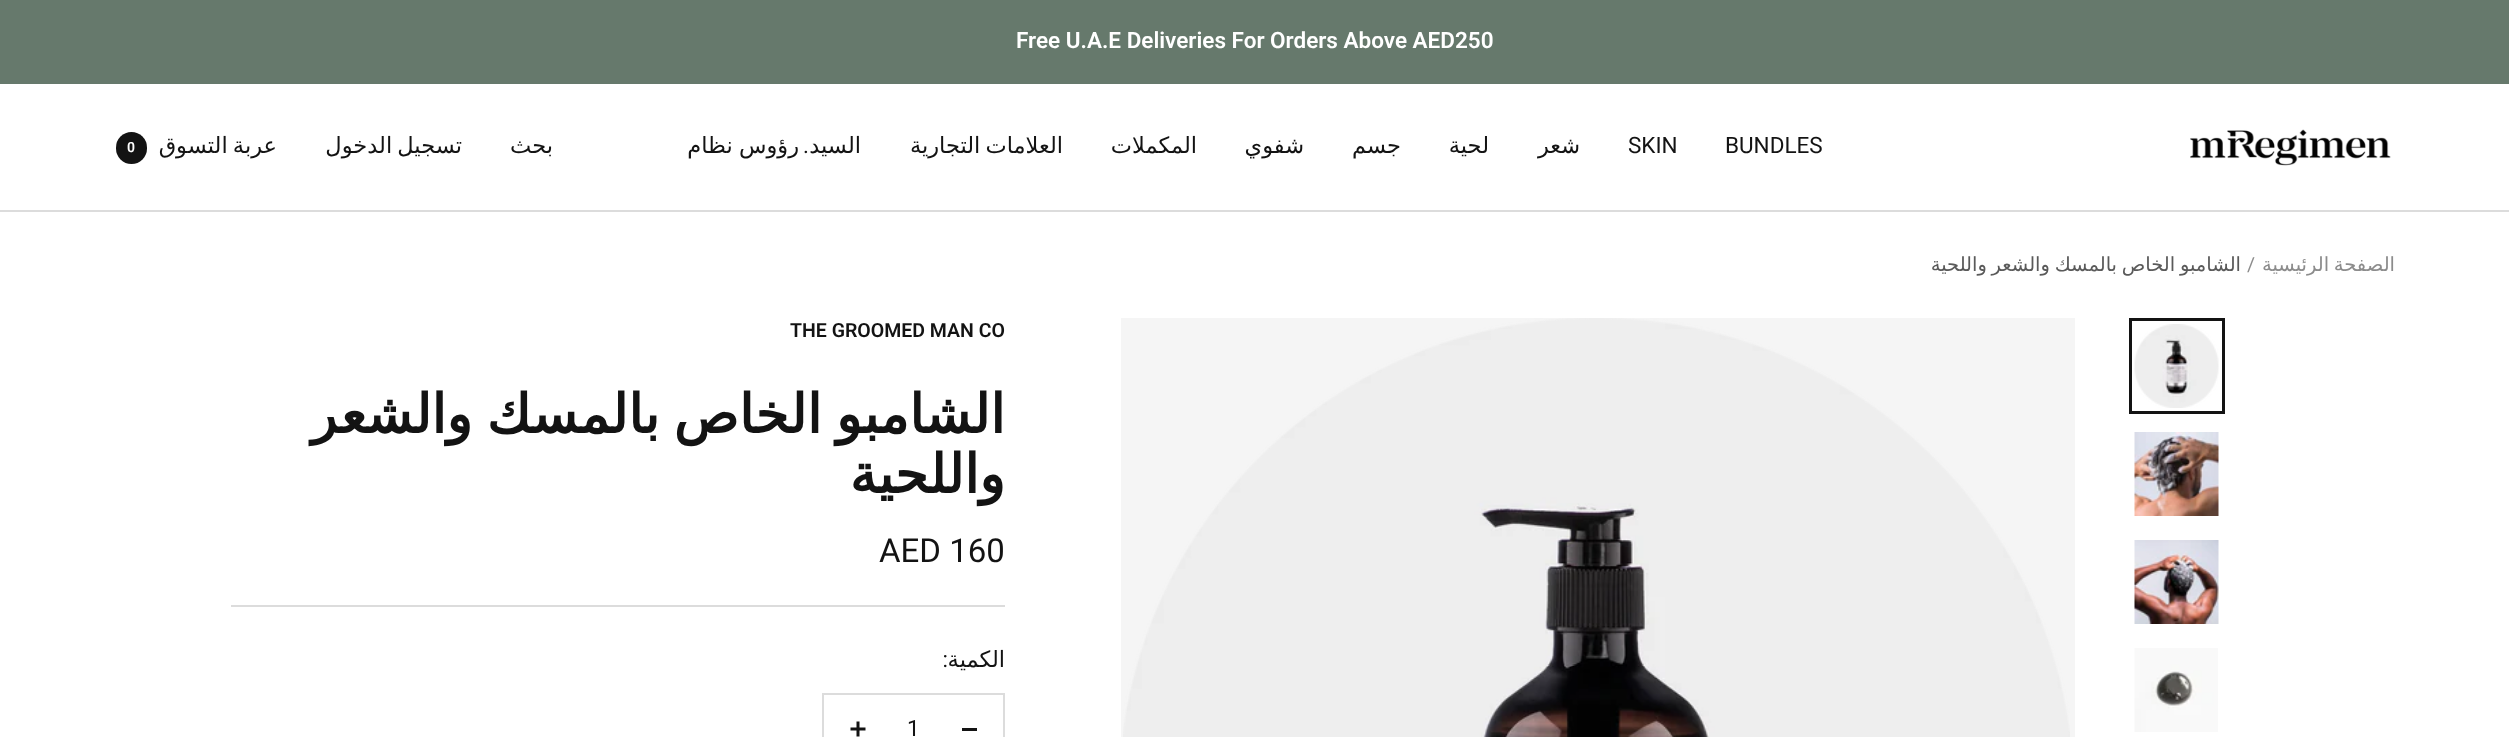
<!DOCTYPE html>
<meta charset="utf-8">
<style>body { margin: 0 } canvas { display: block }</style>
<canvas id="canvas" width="2509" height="737"></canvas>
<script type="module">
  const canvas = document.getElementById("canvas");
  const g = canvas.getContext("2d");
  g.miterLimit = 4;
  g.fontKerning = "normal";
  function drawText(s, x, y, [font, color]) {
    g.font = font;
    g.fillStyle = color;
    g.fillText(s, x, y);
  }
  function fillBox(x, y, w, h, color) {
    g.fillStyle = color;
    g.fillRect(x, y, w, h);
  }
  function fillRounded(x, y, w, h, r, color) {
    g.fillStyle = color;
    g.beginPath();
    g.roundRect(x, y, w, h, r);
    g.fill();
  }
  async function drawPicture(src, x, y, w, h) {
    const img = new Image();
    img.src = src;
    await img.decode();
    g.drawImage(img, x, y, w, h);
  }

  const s1 = ["600 22.5px Roboto", "#FFFFFF"];
  const s2 = ["22.5px Roboto", "#131313"];
  const s3 = ["22.5px DejaVu Sans", "#131313"];
  const s4 = ["600 14px Roboto", "#FFFFFF"];
  const s5 = ["19.5px DejaVu Sans", "#8C8C8C"];
  const s6 = ["19.5px Roboto", "#8C8C8C"];
  const s7 = ["19.5px DejaVu Sans", "#5A5A5A"];
  const s8 = ["600 19.5px Roboto", "#131313"];
  const s9 = ["bold 54px DejaVu Sans", "#131313"];
  const s10 = ["33px Roboto", "#131313"];

  fillBox(0, 0, 2509, 737, "#FFFFFF");
  fillBox(0, 0, 2509, 84, "#66796C");
  drawText("Free U.A.E Deliveries For Orders Above AED250", 1016, 48, s1);
  g.fillStyle = "#DCDCDC";
  g.beginPath();
  g.moveTo(0, 210);
  g.lineTo(0, 212);
  g.lineTo(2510, 212);
  g.lineTo(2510, 86);
  g.lineTo(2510, 210);
  g.closePath();
  g.fill();
  await drawPicture("pic1.png", 2190, 129, 201, 37);
  drawText("BUNDLES", 1725, 153, s2);
  drawText("SKIN", 1628, 153, s2);
  g.direction = "rtl";
  drawText("شعر", 1580, 153, s3);
  drawText("لحية", 1489, 153, s3);
  drawText("جسم", 1401, 153, s3);
  drawText("شفوي", 1304, 153, s3);
  drawText("المكملات", 1197, 153, s3);
  g.wordSpacing = "-2px";
  drawText("العلامات التجارية", 1063, 153, s3);
  g.wordSpacing = "0px";
  drawText("السيد", 861, 153, s3);
  drawText(".", 809, 153, s2);
  g.wordSpacing = "-1px";
  drawText("رؤوس نظام", 799, 153, s3);
  g.wordSpacing = "0px";
  drawText("بحث", 553, 153, s3);
  g.wordSpacing = "-2px";
  drawText("تسجيل الدخول", 462, 153, s3);
  drawText("عربة التسوق", 277, 153, s3);
  fillRounded(116, 132, 31, 32, 15.5, "#131313");
  g.wordSpacing = "0px";
  g.direction = "ltr";
  drawText("0", 127, 152, s4);
  g.wordSpacing = "-1.5px";
  g.direction = "rtl";
  drawText("الصفحة الرئيسية", 2395, 271, s5);
  g.wordSpacing = "0px";
  g.direction = "ltr";
  drawText("/", 2247, 271, s6);
  g.wordSpacing = "-1.5px";
  g.direction = "rtl";
  drawText("الشامبو الخاص بالمسك والشعر واللحية", 2241, 271, s7);
  await drawPicture("pic2.png", 2134, 324, 85, 84);
  g.strokeStyle = "#131313";
  g.lineWidth = 3;
  g.strokeRect(2130.5, 319.5, 93, 93);
  await drawPicture("pic3.png", 2134, 432, 85, 84);
  await drawPicture("pic4.png", 2134, 540, 85, 84);
  await drawPicture("pic5.png", 2134, 648, 84, 84);
  fillBox(1121, 318, 954, 419, "#F5F5F5");
  await drawPicture("pic6.png", 1123, 318, 947, 419);
  fillBox(231, 605, 774, 2, "#DCDCDC");
  g.wordSpacing = "0px";
  g.direction = "ltr";
  drawText("THE GROOMED MAN CO", 790, 337, s8);
  g.wordSpacing = "-3px";
  g.direction = "rtl";
  drawText("الشامبو الخاص بالمسك والشعر", 1005, 433, s9);
  g.wordSpacing = "0px";
  drawText("واللحية", 1005, 493, s9);
  g.direction = "ltr";
  drawText("AED 160", 879, 562, s10);
  g.direction = "rtl";
  drawText("الكمية", 1005, 667, s3);
  drawText(":", 948, 667, s2);
  g.strokeStyle = "#DCDCDC";
  g.lineWidth = 2;
  g.strokeRect(823, 694, 181, 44);
  fillBox(962, 728, 15, 3, "#131313");
  g.direction = "ltr";
  drawText("1", 907, 736, s2);
  await drawPicture("pic7.png", 850, 721, 16, 16);
</script>
